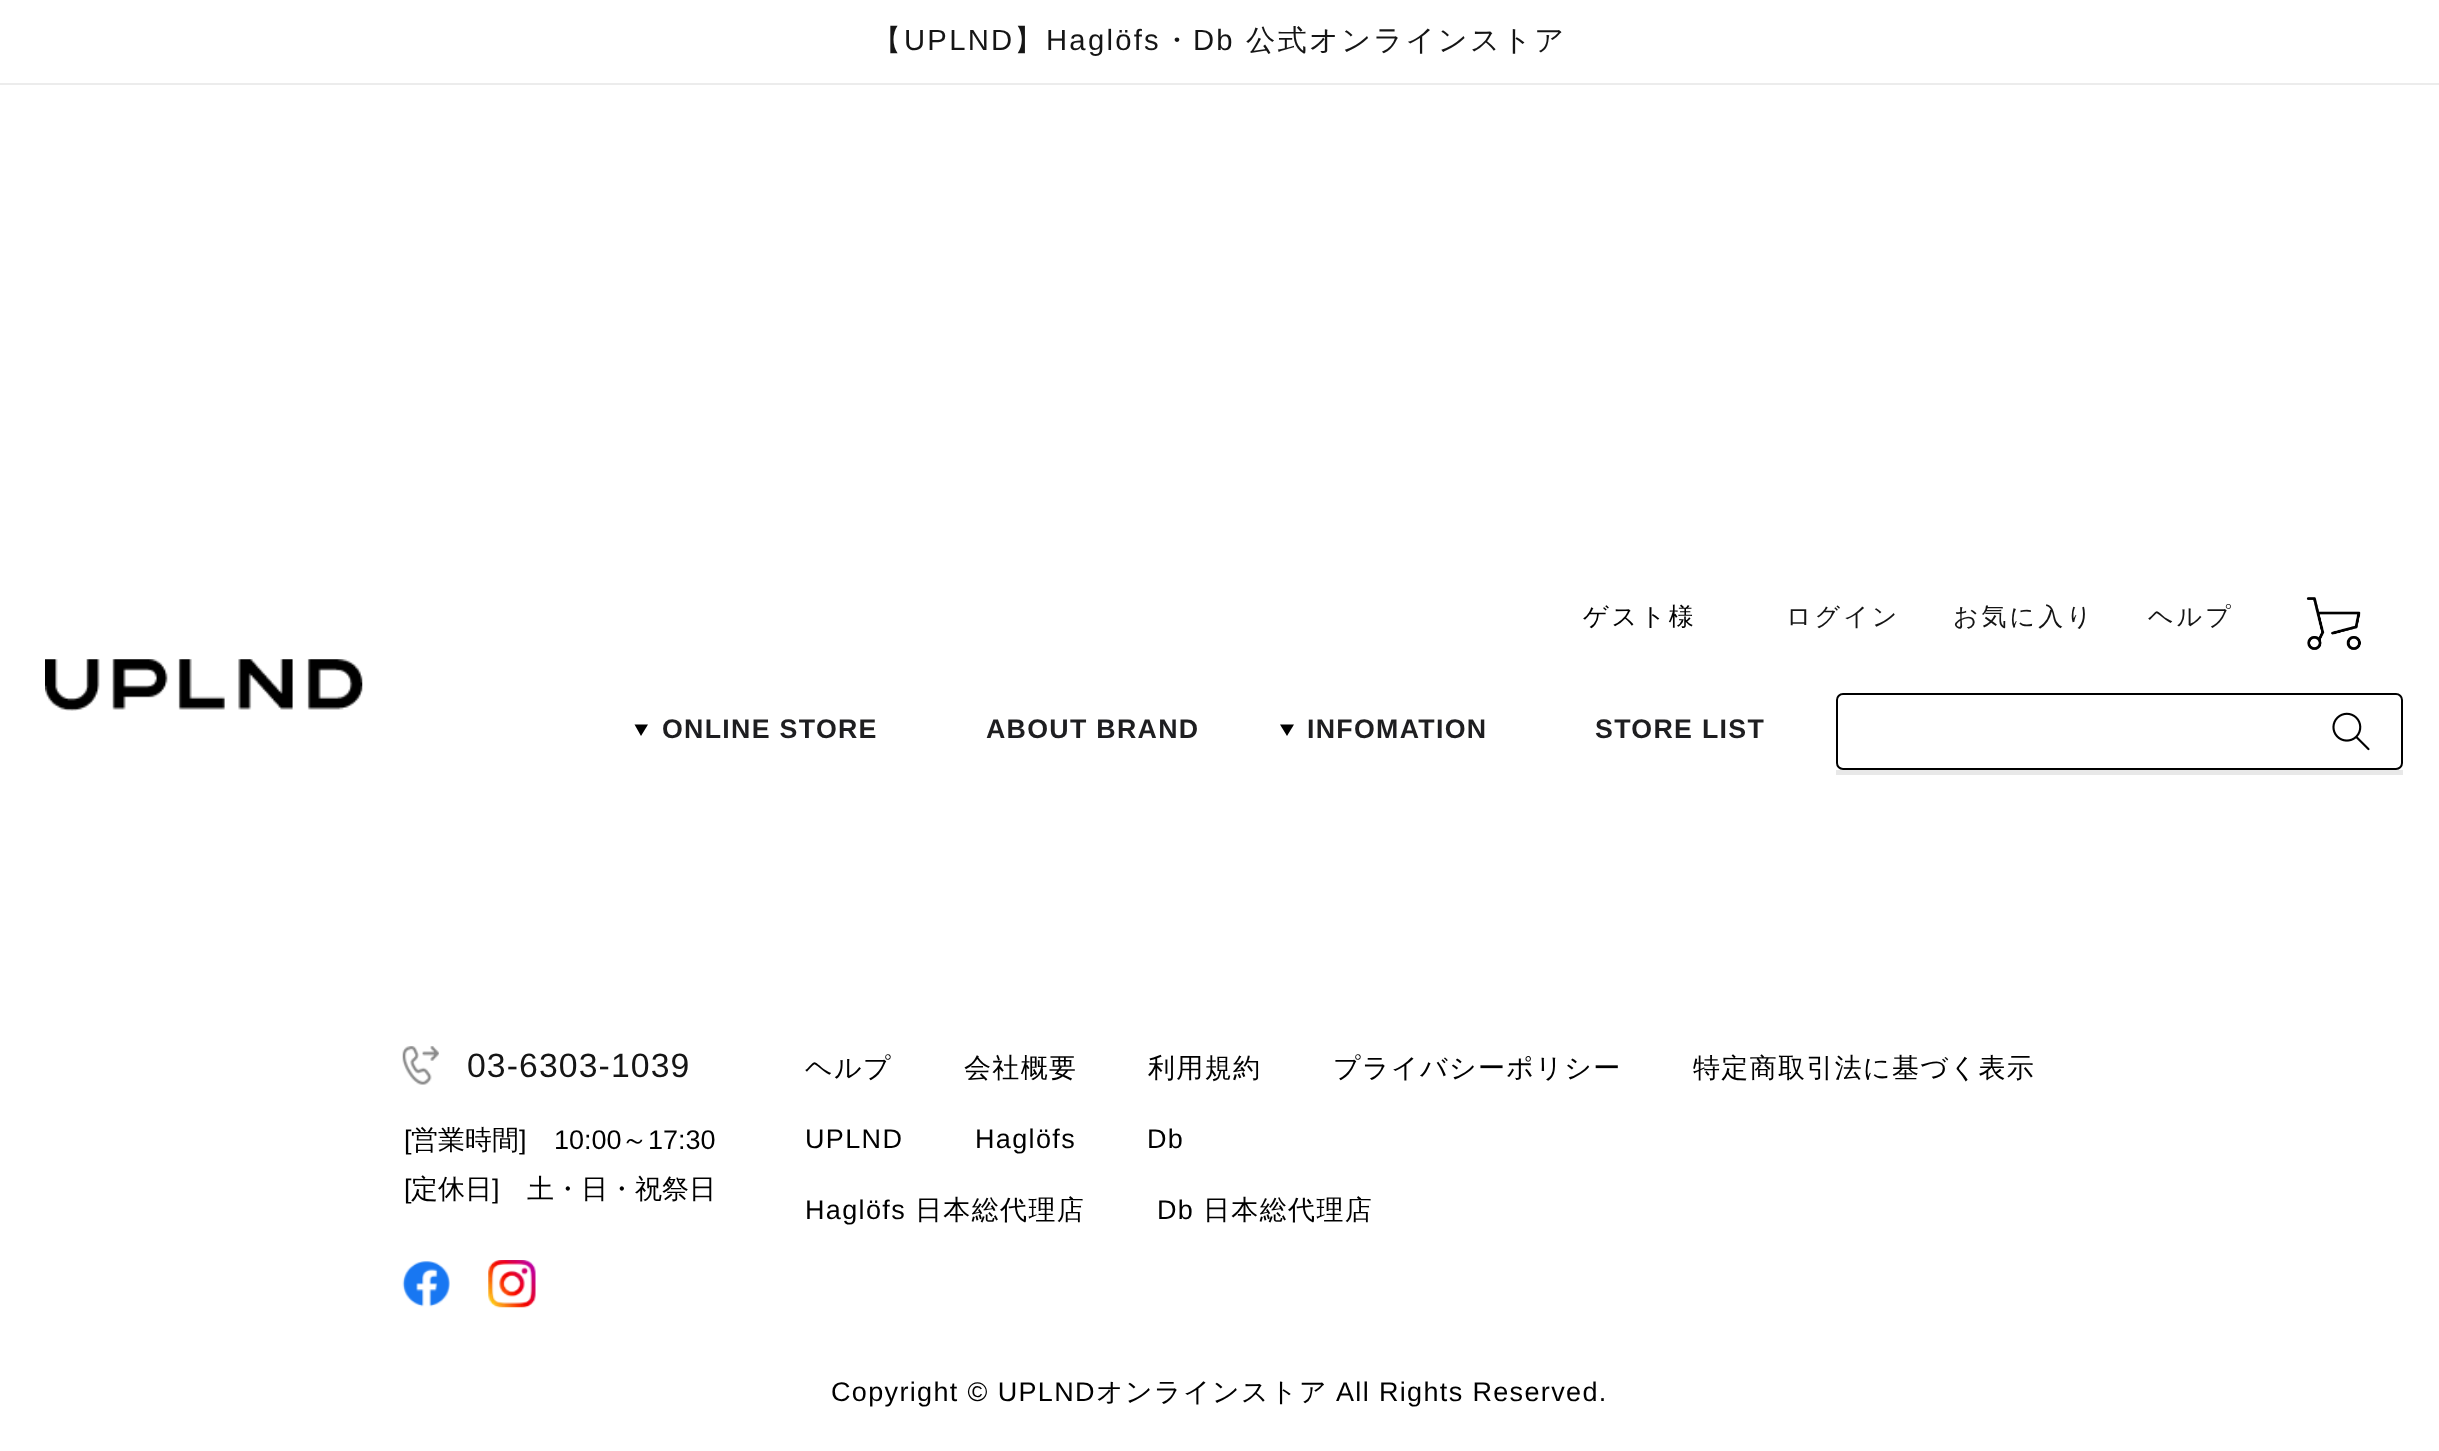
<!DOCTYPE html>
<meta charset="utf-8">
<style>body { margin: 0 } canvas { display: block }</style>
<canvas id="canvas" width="2439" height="1451"></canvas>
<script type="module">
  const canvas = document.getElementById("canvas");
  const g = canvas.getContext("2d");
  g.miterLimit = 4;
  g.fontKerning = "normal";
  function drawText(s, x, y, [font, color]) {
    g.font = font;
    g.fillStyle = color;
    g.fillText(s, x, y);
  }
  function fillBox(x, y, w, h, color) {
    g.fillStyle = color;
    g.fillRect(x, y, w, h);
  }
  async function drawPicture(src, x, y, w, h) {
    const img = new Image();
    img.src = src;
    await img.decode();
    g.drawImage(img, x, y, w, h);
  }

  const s1 = ["500 29.25px WenQuanYi Zen Hei", "#151515"];
  const s2 = ["29.25px Liberation Sans", "#151515"];
  const s3 = ["500 25px WenQuanYi Zen Hei", "#000000"];
  const s4 = ["500 25px WenQuanYi Zen Hei", "#151515"];
  const s5 = ["bold 26.75px Liberation Sans", "#1E1E20"];
  const s6 = ["33.75px Liberation Sans", "#151515"];
  const s7 = ["27px Liberation Sans", "#000000"];
  const s8 = ["500 27px WenQuanYi Zen Hei", "#000000"];

  fillBox(0, 0, 2439, 1451, "#FFFFFF");
  fillBox(0, 83, 2439, 2, "#ECECEC");
  g.letterSpacing = "2.25px";
  drawText("【", 872, 50, s1);
  drawText("UPLND", 904, 50, s2);
  drawText("】", 1014, 50, s1);
  drawText("Haglöfs", 1046, 50, s2);
  drawText("・", 1162, 50, s1);
  drawText("Db", 1193, 50, s2);
  drawText("公式オンラインストア", 1246, 50, s1);
  await drawPicture("pic1.png", 45, 659, 318, 52);
  g.letterSpacing = "3px";
  drawText("ゲスト様", 1583, 625, s3);
  drawText("ログイン", 1786, 625, s4);
  drawText("お気に入り", 1953, 625, s4);
  drawText("ヘルプ", 2148, 625, s4);
  await drawPicture("pic2.png", 2306, 597, 55, 53);
  g.fillStyle = "#000000";
  g.beginPath();
  g.moveTo(634.5, 724.5);
  g.lineTo(648, 724.5);
  g.lineTo(641, 736);
  g.closePath();
  g.fill();
  g.letterSpacing = "1.3px";
  drawText("ONLINE STORE", 662, 738, s5);
  drawText("ABOUT BRAND", 986, 738, s5);
  g.fillStyle = "#000000";
  g.beginPath();
  g.moveTo(1280, 724.5);
  g.lineTo(1294, 724.5);
  g.lineTo(1287, 736);
  g.closePath();
  g.fill();
  drawText("INFOMATION", 1307, 738, s5);
  drawText("STORE LIST", 1595, 738, s5);
  g.beginPath();
  g.roundRect(1837, 694, 565, 75, 6);
  g.strokeStyle = "#000000";
  g.lineWidth = 2;
  g.stroke();
  await drawPicture("pic3.png", 2332, 712, 38, 39);
  fillBox(1836, 770, 567, 5, "#E8E8E8");
  await drawPicture("pic4.png", 402, 1046, 37, 39);
  g.letterSpacing = "1.1px";
  drawText("03-6303-1039", 467, 1077, s6);
  g.letterSpacing = "0px";
  drawText("[", 404, 1149, s7);
  drawText("営業時間", 411, 1149, s8);
  drawText("]", 519, 1149, s7);
  drawText("10:00", 554, 1149, s7);
  drawText("～", 621, 1149, s8);
  drawText("17:30", 648, 1149, s7);
  drawText("[", 404, 1198, s7);
  drawText("定休日", 411, 1198, s8);
  drawText("]", 492, 1198, s7);
  drawText("土・日・祝祭日", 527, 1198, s8);
  await drawPicture("pic5.png", 402, 1261, 48, 46);
  await drawPicture("pic6.png", 488, 1260, 48, 48);
  g.letterSpacing = "1.35px";
  drawText("ヘルプ", 805, 1077, s8);
  drawText("会社概要", 964, 1077, s8);
  drawText("利用規約", 1148, 1077, s8);
  drawText("プライバシーポリシー", 1333, 1077, s8);
  drawText("特定商取引法に基づく表示", 1693, 1077, s8);
  drawText("UPLND", 805, 1148, s7);
  drawText("Haglöfs", 975, 1148, s7);
  drawText("Db", 1147, 1148, s7);
  drawText("Haglöfs", 805, 1219, s7);
  drawText("日本総代理店", 915, 1219, s8);
  drawText("Db", 1157, 1219, s7);
  drawText("日本総代理店", 1203, 1219, s8);
  drawText("Copyright © UPLND", 831, 1401, s7);
  drawText("オンラインストア", 1096, 1401, s8);
  drawText("All Rights Reserved.", 1336, 1401, s7);
</script>
